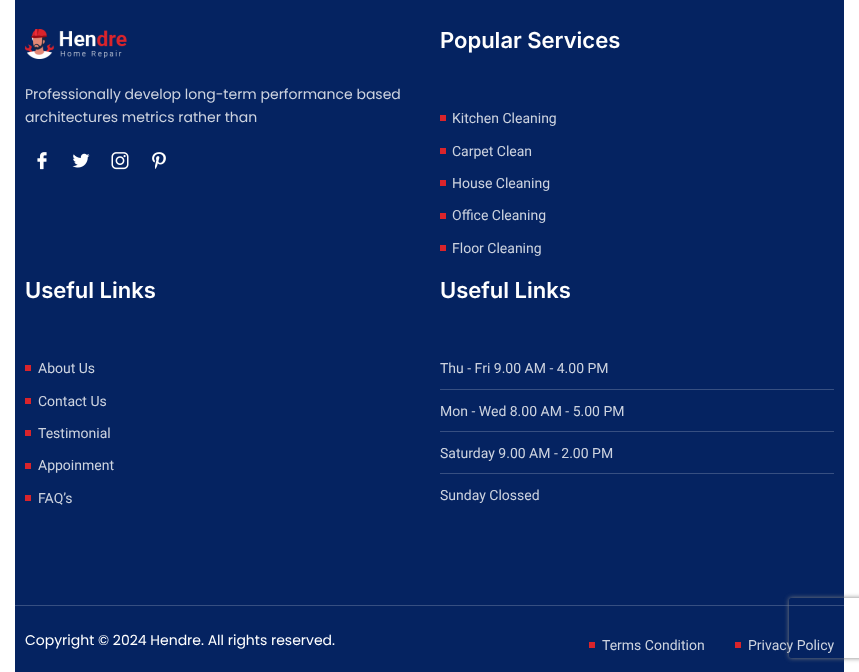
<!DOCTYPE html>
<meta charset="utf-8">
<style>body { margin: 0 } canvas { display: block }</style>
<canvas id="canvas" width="859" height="672"></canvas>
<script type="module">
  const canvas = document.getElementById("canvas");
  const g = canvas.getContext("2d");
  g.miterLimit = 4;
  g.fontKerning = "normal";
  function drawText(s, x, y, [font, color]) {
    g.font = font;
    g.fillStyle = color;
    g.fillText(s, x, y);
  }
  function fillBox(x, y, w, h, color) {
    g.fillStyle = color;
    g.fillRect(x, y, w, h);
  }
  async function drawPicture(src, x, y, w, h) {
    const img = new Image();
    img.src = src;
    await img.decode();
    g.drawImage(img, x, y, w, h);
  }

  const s1 = ["14px Poppins", "#CDD3DF"];
  const s2 = ["600 22px Inter", "#FFFFFF"];
  const s3 = ["14px Roboto", "#CDD3DF"];
  const s4 = ["14px Poppins", "#FFFFFF"];

  fillBox(0, 0, 859, 672, "#FFFFFF");
  fillBox(15, 0, 829, 672, "#052361");
  await drawPicture("pic1.png", 25, 29, 102, 30);
  drawText("Professionally develop long-term performance based", 25, 99, s1);
  drawText("architectures metrics rather than", 25, 122, s1);
  await drawPicture("pic2.png", 37, 152, 10, 18);
  await drawPicture("pic3.png", 72, 153, 18, 15);
  await drawPicture("pic4.png", 111, 152, 18, 18);
  await drawPicture("pic5.png", 152, 152, 14, 17);
  drawText("Popular Services", 440, 48, s2);
  fillBox(440, 115, 6, 6, "#DA242B");
  drawText("Kitchen Cleaning", 452, 123, s3);
  fillBox(440, 148, 6, 6, "#DA242B");
  drawText("Carpet Clean", 452, 156, s3);
  fillBox(440, 180, 6, 6, "#DA242B");
  drawText("House Cleaning", 452, 188, s3);
  fillBox(440, 213, 6, 6, "#DA242B");
  drawText("Office Cleaning", 452, 220, s3);
  fillBox(440, 245, 6, 6, "#DA242B");
  drawText("Floor Cleaning", 452, 253, s3);
  drawText("Useful Links", 25, 298, s2);
  fillBox(25, 365, 6, 6, "#DA242B");
  drawText("About Us", 38, 373, s3);
  fillBox(25, 398, 6, 6, "#DA242B");
  drawText("Contact Us", 38, 406, s3);
  fillBox(25, 430, 6, 6, "#DA242B");
  drawText("Testimonial", 38, 438, s3);
  fillBox(25, 463, 6, 6, "#DA242B");
  drawText("Appoinment", 38, 470, s3);
  fillBox(25, 495, 6, 6, "#DA242B");
  drawText("FAQ’s", 38, 503, s3);
  drawText("Useful Links", 440, 298, s2);
  drawText("Thu - Fri 9.00 AM - 4.00 PM", 440, 373, s3);
  fillBox(440, 389, 394, 1, "#374F81");
  drawText("Mon - Wed 8.00 AM - 5.00 PM", 440, 416, s3);
  fillBox(440, 431, 394, 1, "#374F81");
  drawText("Saturday 9.00 AM - 2.00 PM", 440, 458, s3);
  fillBox(440, 473, 394, 1, "#374F81");
  drawText("Sunday Clossed", 440, 500, s3);
  fillBox(15, 605, 829, 1, "#374F81");
  drawText("Copyright © 2024 Hendre. All rights reserved.", 25, 645, s4);
  fillBox(589, 642, 6, 6, "#DA242B");
  drawText("Terms Condition", 602, 650, s3);
  fillBox(735, 642, 6, 6, "#DA242B");
  drawText("Privacy Policy", 748, 650, s3);
  g.save();
  g.beginPath();
  g.moveTo(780, 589);
  g.lineTo(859, 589);
  g.lineTo(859, 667);
  g.lineTo(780, 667);
  g.closePath();
  g.moveTo(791, 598);
  g.lineTo(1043, 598);
  g.bezierCurveTo(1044, 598, 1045, 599, 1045, 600);
  g.lineTo(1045, 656);
  g.bezierCurveTo(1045, 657, 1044, 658, 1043, 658);
  g.lineTo(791, 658);
  g.bezierCurveTo(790, 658, 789, 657, 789, 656);
  g.lineTo(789, 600);
  g.bezierCurveTo(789, 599, 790, 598, 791, 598);
  g.closePath();
  g.clip("evenodd");
  g.fillStyle = "#808080";
  g.filter = "blur(2.5px)";
  g.beginPath();
  g.roundRect(789, 598, 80, 60, 2);
  g.fill();
  g.filter = "none";
  g.restore();
</script>
